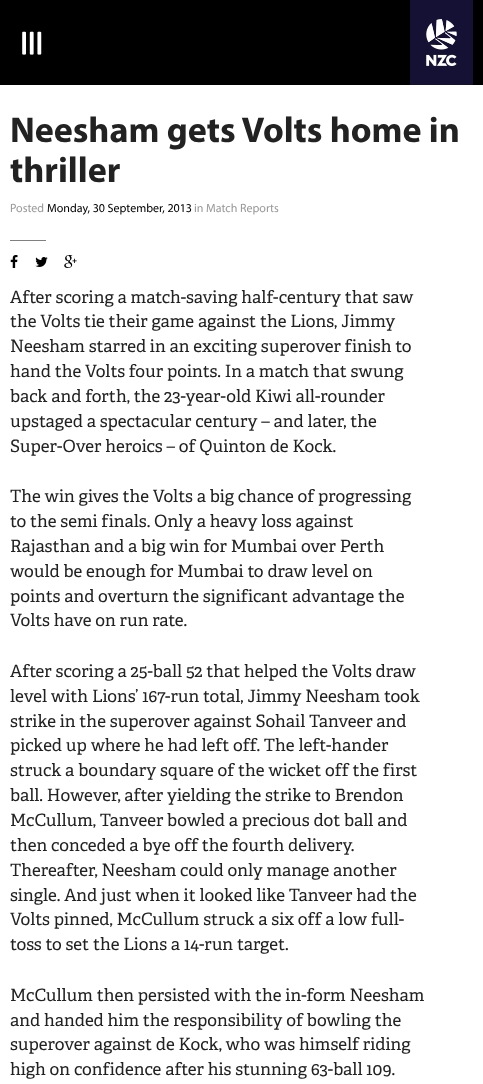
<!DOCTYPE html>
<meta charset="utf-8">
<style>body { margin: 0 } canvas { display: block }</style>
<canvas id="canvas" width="483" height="1084"></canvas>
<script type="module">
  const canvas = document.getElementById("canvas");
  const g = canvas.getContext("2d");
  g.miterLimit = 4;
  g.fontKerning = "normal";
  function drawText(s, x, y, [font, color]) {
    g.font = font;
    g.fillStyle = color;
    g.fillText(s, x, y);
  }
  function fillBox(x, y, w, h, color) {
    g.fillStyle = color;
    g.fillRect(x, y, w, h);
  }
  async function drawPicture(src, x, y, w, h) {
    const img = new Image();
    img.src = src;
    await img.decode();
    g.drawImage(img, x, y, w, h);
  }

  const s1 = ["bold 36px Myriad", "#222222"];
  const s2 = ["12px Myriad", "#999999"];
  const s3 = ["12px Myriad", "#000000"];
  const s4 = ["17.1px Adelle", "#222222"];

  fillBox(0, 0, 483, 1084, "#FFFFFF");
  fillBox(0, 0, 483, 85, "#000000");
  await drawPicture("pic1.png", 22, 31, 20, 24);
  fillBox(410, 0, 63, 85, "#141134");
  await drawPicture("pic2.png", 426, 19, 31, 47);
  drawText("Neesham gets Volts home in", 10, 142, s1);
  drawText("thriller", 10, 182, s1);
  drawText("Posted", 10, 212, s2);
  drawText("Monday, 30 September, 2013", 47, 212, s3);
  drawText("in Match Reports", 194, 212, s2);
  fillBox(10, 240, 36, 1, "#808080");
  await drawPicture("pic3.png", 10, 255, 8, 13);
  await drawPicture("pic4.png", 35, 257, 13, 10);
  await drawPicture("pic5.png", 64, 255, 13, 13);
  drawText("After scoring a match-saving half-century that saw", 10, 303, s4);
  drawText("the Volts tie their game against the Lions, Jimmy", 10, 327, s4);
  drawText("Neesham starred in an exciting superover finish to", 10, 352, s4);
  drawText("hand the Volts four points. In a match that swung", 10, 377, s4);
  drawText("back and forth, the 23-year-old Kiwi all-rounder", 10, 402, s4);
  drawText("upstaged a spectacular century – and later, the", 10, 427, s4);
  drawText("Super-Over heroics – of Quinton de Kock.", 10, 452, s4);
  drawText("The win gives the Volts a big chance of progressing", 10, 502, s4);
  drawText("to the semi finals. Only a heavy loss against", 10, 527, s4);
  drawText("Rajasthan and a big win for Mumbai over Perth", 10, 552, s4);
  drawText("would be enough for Mumbai to draw level on", 10, 577, s4);
  drawText("points and overturn the significant advantage the", 10, 602, s4);
  drawText("Volts have on run rate.", 10, 626, s4);
  drawText("After scoring a 25-ball 52 that helped the Volts draw", 10, 677, s4);
  drawText("level with Lions’ 167-run total, Jimmy Neesham took", 10, 702, s4);
  drawText("strike in the superover against Sohail Tanveer and", 10, 727, s4);
  drawText("picked up where he had left off. The left-hander", 10, 751, s4);
  drawText("struck a boundary square of the wicket off the first", 10, 776, s4);
  drawText("ball. However, after yielding the strike to Brendon", 10, 801, s4);
  drawText("McCullum, Tanveer bowled a precious dot ball and", 10, 826, s4);
  drawText("then conceded a bye off the fourth delivery.", 10, 851, s4);
  drawText("Thereafter, Neesham could only manage another", 10, 876, s4);
  drawText("single. And just when it looked like Tanveer had the", 10, 901, s4);
  drawText("Volts pinned, McCullum struck a six off a low full-", 10, 925, s4);
  drawText("toss to set the Lions a 14-run target.", 10, 950, s4);
  drawText("McCullum then persisted with the in-form Neesham", 10, 1001, s4);
  drawText("and handed him the responsibility of bowling the", 10, 1026, s4);
  drawText("superover against de Kock, who was himself riding", 10, 1050, s4);
  drawText("high on confidence after his stunning 63-ball 109.", 10, 1075, s4);
</script>
